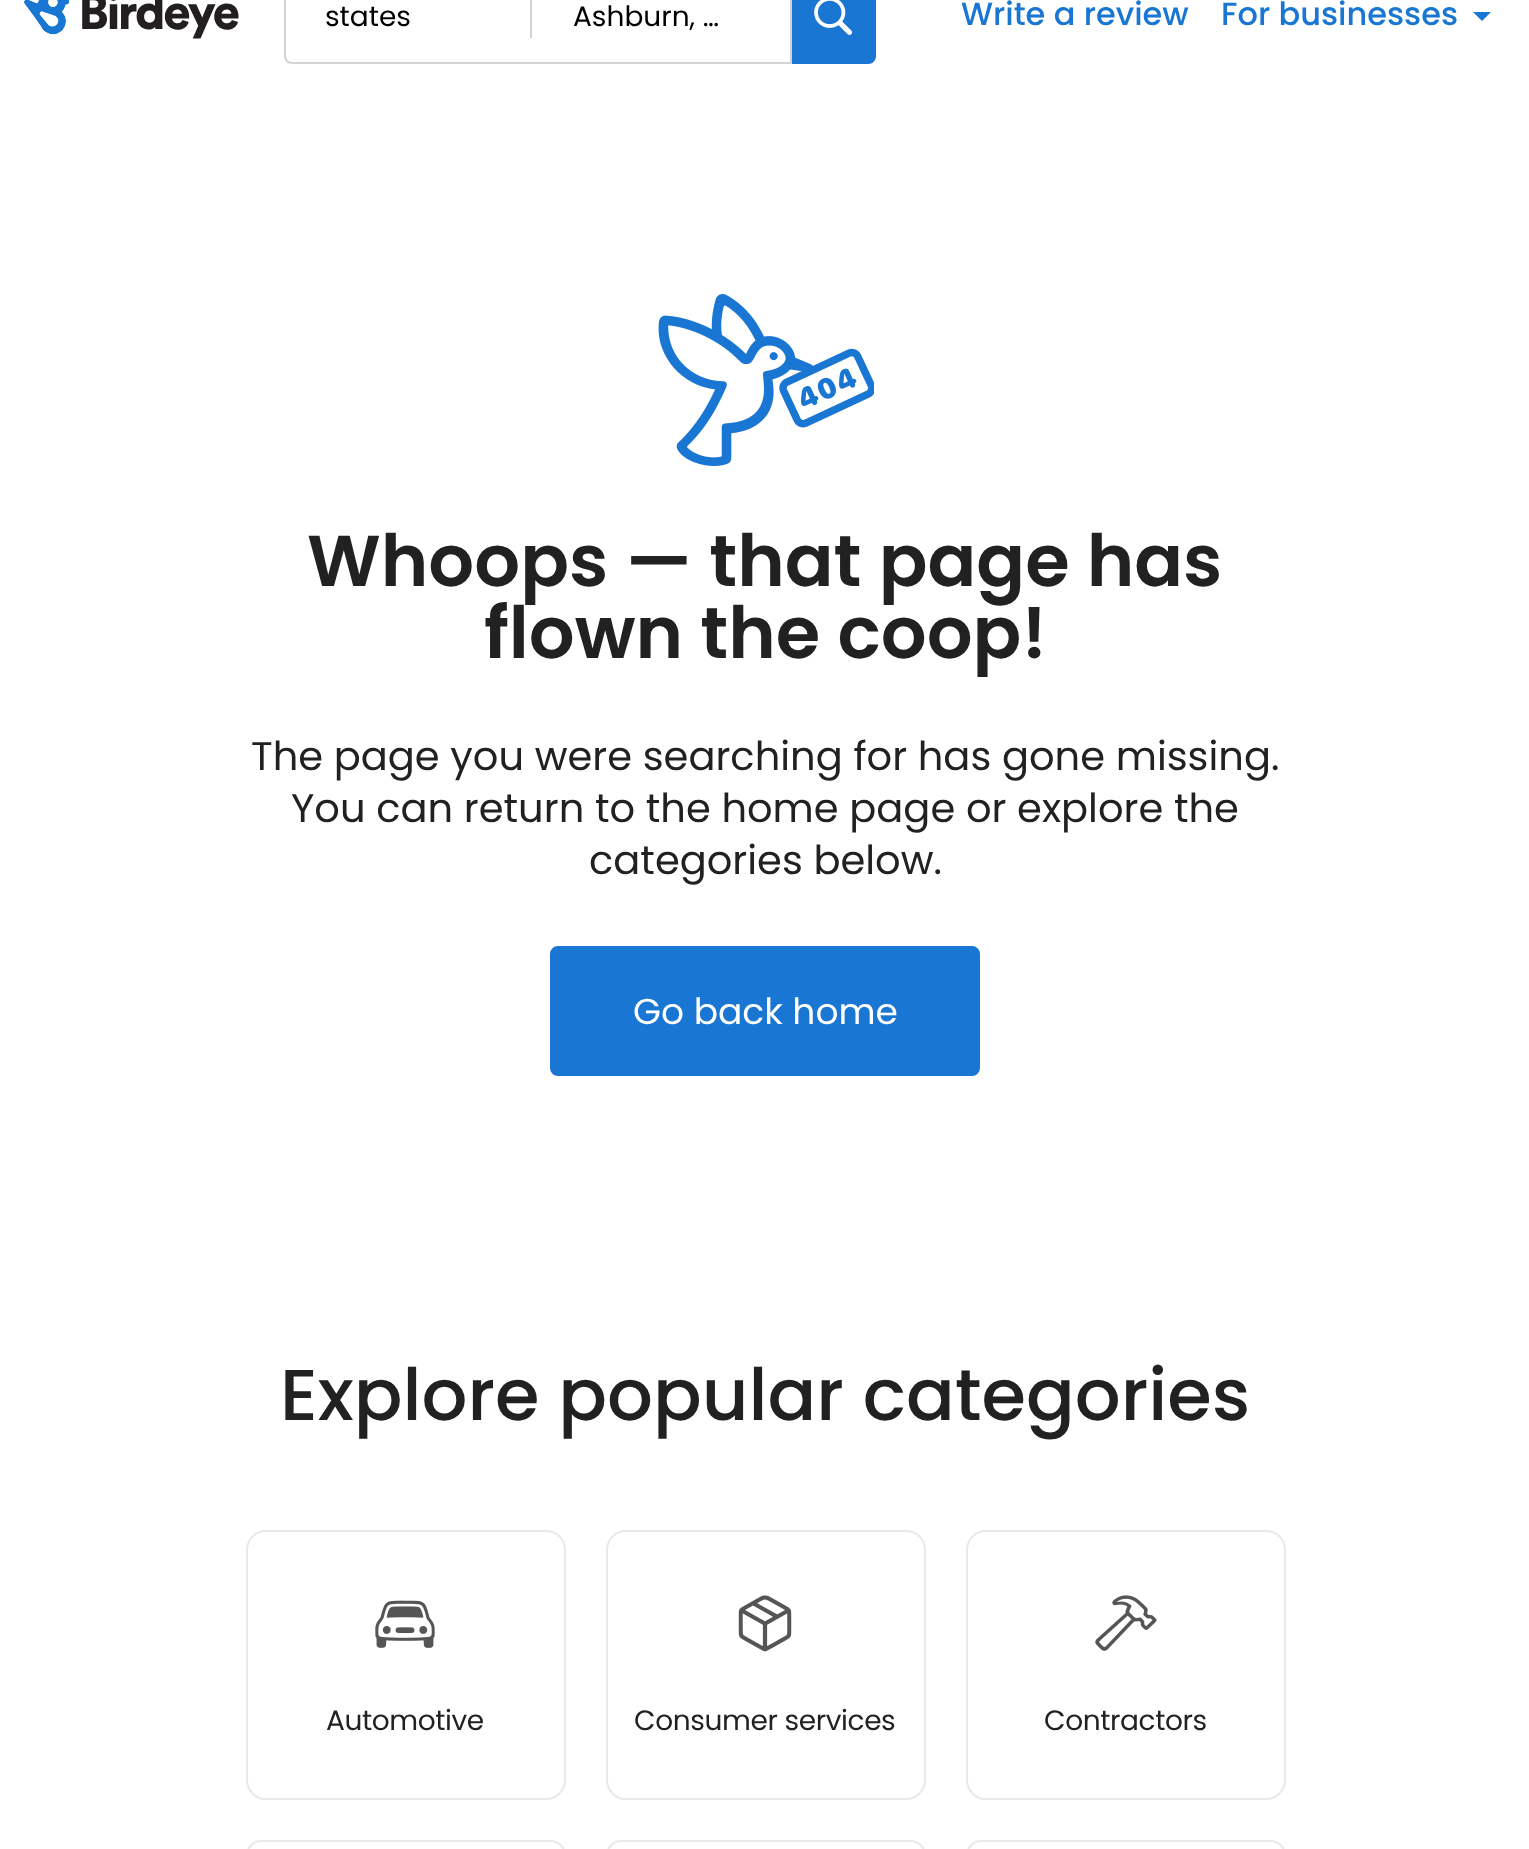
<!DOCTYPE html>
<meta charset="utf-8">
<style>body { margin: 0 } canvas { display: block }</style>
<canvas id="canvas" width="1529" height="1849"></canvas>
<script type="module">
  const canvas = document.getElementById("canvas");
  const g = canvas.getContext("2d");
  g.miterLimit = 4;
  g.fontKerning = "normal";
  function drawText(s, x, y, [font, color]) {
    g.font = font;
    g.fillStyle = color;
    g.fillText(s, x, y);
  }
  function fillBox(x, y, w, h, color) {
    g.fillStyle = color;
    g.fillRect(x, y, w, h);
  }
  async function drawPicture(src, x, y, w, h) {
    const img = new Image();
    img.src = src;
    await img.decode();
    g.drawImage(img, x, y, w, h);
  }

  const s1 = ["28px Poppins", "#000000"];
  const s2 = ["500 32px Poppins", "#1976D2"];
  const s3 = ["600 72px Poppins", "#212121"];
  const s4 = ["40px Poppins", "#212121"];
  const s5 = ["36px Poppins", "#FFFFFF"];
  const s6 = ["500 72px Poppins", "#212121"];
  const s7 = ["28px Poppins", "#212121"];

  fillBox(0, 0, 1529, 1849, "#FFFFFF");
  await drawPicture("pic1.png", 24, 0, 215, 39);
  g.beginPath();
  g.moveTo(292, -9);
  g.lineTo(791, -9);
  g.lineTo(791, 63);
  g.lineTo(292, 63);
  g.bezierCurveTo(288, 63, 285, 60, 285, 56);
  g.lineTo(285, -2);
  g.bezierCurveTo(285, -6, 288, -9, 292, -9);
  g.closePath();
  g.strokeStyle = "#D2D2D7";
  g.lineWidth = 2;
  g.stroke();
  fillBox(530, 0, 2, 38, "#D2D2D7");
  drawText("states", 325, 26, s1);
  drawText("Ashburn, …", 573, 26, s1);
  g.fillStyle = "#1976D2";
  g.beginPath();
  g.moveTo(792, -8);
  g.lineTo(868, -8);
  g.bezierCurveTo(872.5, -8, 876, -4.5, 876, 0);
  g.lineTo(876, 56);
  g.bezierCurveTo(876, 60.5, 872.5, 64, 868, 64);
  g.lineTo(792, 64);
  g.closePath();
  g.fill();
  await drawPicture("pic2.png", 814, 0, 39, 35);
  drawText("Write a review", 961, 25, s2);
  drawText("For businesses", 1221, 25, s2);
  g.beginPath();
  g.moveTo(1473, 12);
  g.lineTo(1482, 21);
  g.lineTo(1491, 12);
  g.closePath();
  g.fill();
  await drawPicture("pic3.png", 658, 294, 216, 172);
  drawText("Whoops — that page has", 307, 586, s3);
  drawText("flown the coop!", 484, 658, s3);
  drawText("The page you were searching for has gone missing.", 251, 770, s4);
  drawText("You can return to the home page or explore the", 291, 822, s4);
  drawText("categories below.", 589, 874, s4);
  g.fillStyle = "#1976D2";
  g.beginPath();
  g.roundRect(551, 947, 428, 128, 7);
  g.fill();
  g.strokeStyle = "#1976D2";
  g.stroke();
  drawText("Go back home", 633, 1024, s5);
  drawText("Explore popular categories", 280, 1420, s6);
  g.beginPath();
  g.roundRect(247, 1531, 318, 268, 19);
  g.strokeStyle = "#E9E9EB";
  g.stroke();
  await drawPicture("pic4.png", 375, 1600, 60, 48);
  g.letterSpacing = "-0.4px";
  drawText("Automotive", 326, 1730, s7);
  g.beginPath();
  g.roundRect(607, 1531, 318, 268, 19);
  g.stroke();
  await drawPicture("pic5.png", 738, 1595, 54, 57);
  drawText("Consumer services", 634, 1730, s7);
  g.beginPath();
  g.roundRect(967, 1531, 318, 268, 19);
  g.stroke();
  await drawPicture("pic6.png", 1095, 1595, 62, 56);
  drawText("Contractors", 1044, 1730, s7);
  g.beginPath();
  g.roundRect(247, 1841, 318, 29, 19);
  g.stroke();
  g.beginPath();
  g.roundRect(607, 1841, 318, 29, 19);
  g.stroke();
  g.beginPath();
  g.roundRect(967, 1841, 318, 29, 19);
  g.stroke();
</script>
